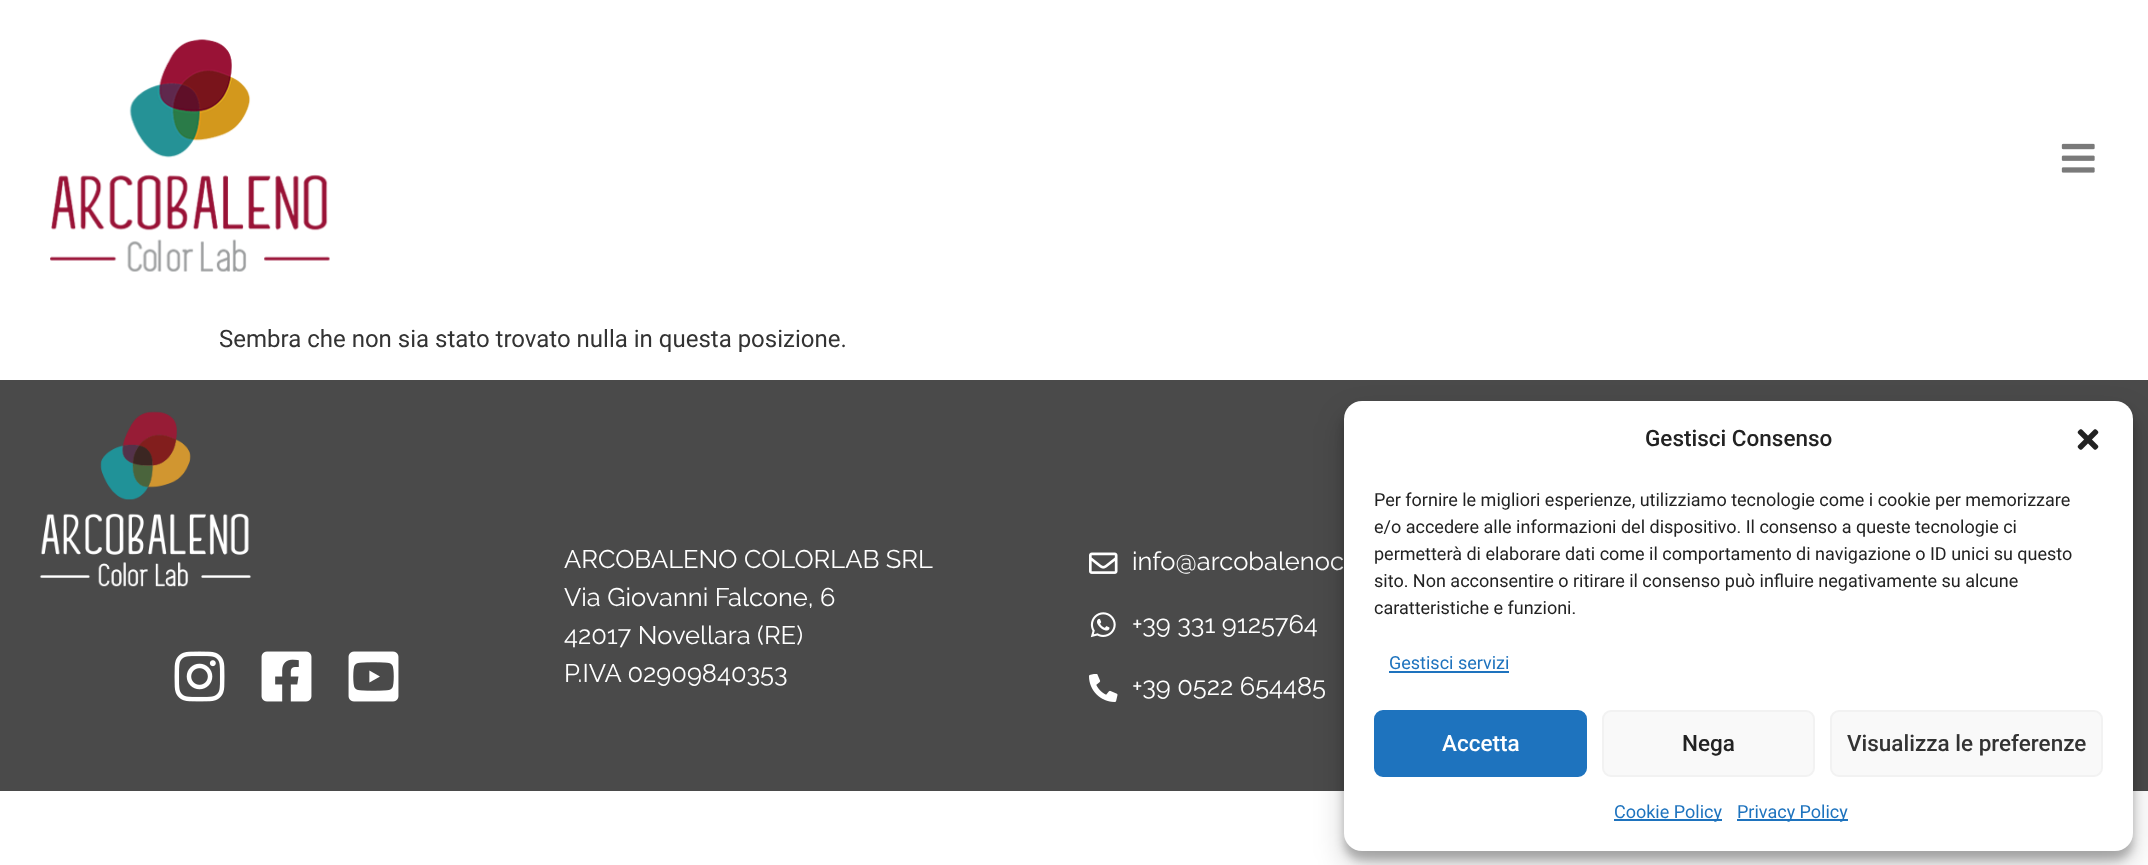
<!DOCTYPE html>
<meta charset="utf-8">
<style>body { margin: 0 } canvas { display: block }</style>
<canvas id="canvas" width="2148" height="865"></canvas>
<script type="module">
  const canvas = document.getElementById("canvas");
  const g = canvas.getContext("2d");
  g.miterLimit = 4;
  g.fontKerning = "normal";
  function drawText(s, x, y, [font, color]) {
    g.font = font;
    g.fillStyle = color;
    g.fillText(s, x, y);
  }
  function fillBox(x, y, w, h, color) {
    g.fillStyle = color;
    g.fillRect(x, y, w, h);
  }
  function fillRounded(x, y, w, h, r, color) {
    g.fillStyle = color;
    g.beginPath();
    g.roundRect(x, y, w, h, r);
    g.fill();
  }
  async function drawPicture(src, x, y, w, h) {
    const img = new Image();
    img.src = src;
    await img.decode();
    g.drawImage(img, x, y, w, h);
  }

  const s1 = ["24px Roboto", "#333333"];
  const s2 = ["25.5px Raleway", "#FFFFFF"];
  const s3 = ["500 22.5px Roboto", "#222222"];
  const s4 = ["18px Roboto", "#222222"];
  const s5 = ["18px Roboto", "#1E73BE"];
  const s6 = ["500 22.5px Roboto", "#FFFFFF"];
  const s7 = ["500 22.5px Roboto", "#333333"];

  fillBox(0, 0, 2148, 865, "#FFFFFF");
  await drawPicture("pic1.png", 50, 39, 280, 233);
  await drawPicture("pic2.png", 2061, 143, 34, 30);
  drawText("Sembra che non sia stato trovato nulla in questa posizione.", 219, 347, s1);
  fillBox(0, 380, 2148, 411, "#4A4A4A");
  await drawPicture("pic3.png", 39, 411, 213, 176);
  await drawPicture("pic4.png", 174, 651, 51, 51);
  await drawPicture("pic5.png", 261, 651, 51, 51);
  await drawPicture("pic6.png", 348, 651, 51, 51);
  drawText("ARCOBALENO COLORLAB SRL", 564, 568, s2);
  drawText("Via Giovanni Falcone, 6", 564, 606, s2);
  drawText("42017 Novellara (RE)", 564, 644, s2);
  drawText("P.IVA 02909840353", 564, 682, s2);
  await drawPicture("pic7.png", 1089, 552, 29, 22);
  drawText("info@arcobalenoc", 1132, 570, s2);
  await drawPicture("pic8.png", 1090, 612, 26, 26);
  drawText("+39 331 9125764", 1132, 633, s2);
  await drawPicture("pic9.png", 1089, 674, 29, 28);
  drawText("+39 0522 654485", 1132, 695, s2);
  g.fillStyle = "rgba(0, 0, 0, 0.23)";
  g.filter = "blur(4.5px)";
  g.beginPath();
  g.roundRect(1344, 410, 789, 450, 18);
  g.fill();
  g.filter = "none";
  g.fillStyle = "rgba(0, 0, 0, 0.19)";
  g.filter = "blur(15px)";
  g.beginPath();
  g.roundRect(1344, 416, 789, 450, 18);
  g.fill();
  g.filter = "none";
  fillRounded(1344, 401, 789, 450, 18, "#FFFFFF");
  drawText("Gestisci Consenso", 1645, 446, s3);
  await drawPicture("pic10.png", 2077, 429, 22, 21);
  drawText("Per fornire le migliori esperienze, utilizziamo tecnologie come i cookie per memorizzare", 1374, 506, s4);
  drawText("e/o accedere alle informazioni del dispositivo. Il consenso a queste tecnologie ci", 1374, 533, s4);
  drawText("permetterà di elaborare dati come il comportamento di navigazione o ID unici su questo", 1374, 560, s4);
  drawText("sito. Non acconsentire o ritirare il consenso può influire negativamente su alcune", 1374, 587, s4);
  drawText("caratteristiche e funzioni.", 1374, 614, s4);
  drawText("Gestisci servizi", 1389, 669, s5);
  fillBox(1389, 671, 120, 2, "#1E73BE");
  g.beginPath();
  g.roundRect(1375, 711, 211, 65, 8);
  g.fill();
  g.strokeStyle = "#1E73BE";
  g.lineWidth = 2;
  g.stroke();
  drawText("Accetta", 1442, 751, s6);
  g.fillStyle = "#F9F9F9";
  g.beginPath();
  g.roundRect(1603, 711, 211, 65, 8);
  g.fill();
  g.strokeStyle = "#F2F2F2";
  g.stroke();
  drawText("Nega", 1682, 751, s3);
  g.fillStyle = "#F9F9F9";
  g.beginPath();
  g.roundRect(1831, 711, 271, 65, 8);
  g.fill();
  g.stroke();
  drawText("Visualizza le preferenze", 1847, 751, s7);
  fillBox(1614, 819, 108, 2, "#1E73BE");
  drawText("Cookie Policy", 1614, 818, s5);
  fillBox(1737, 819, 111, 2, "#1E73BE");
  drawText("Privacy Policy", 1737, 818, s5);
</script>
